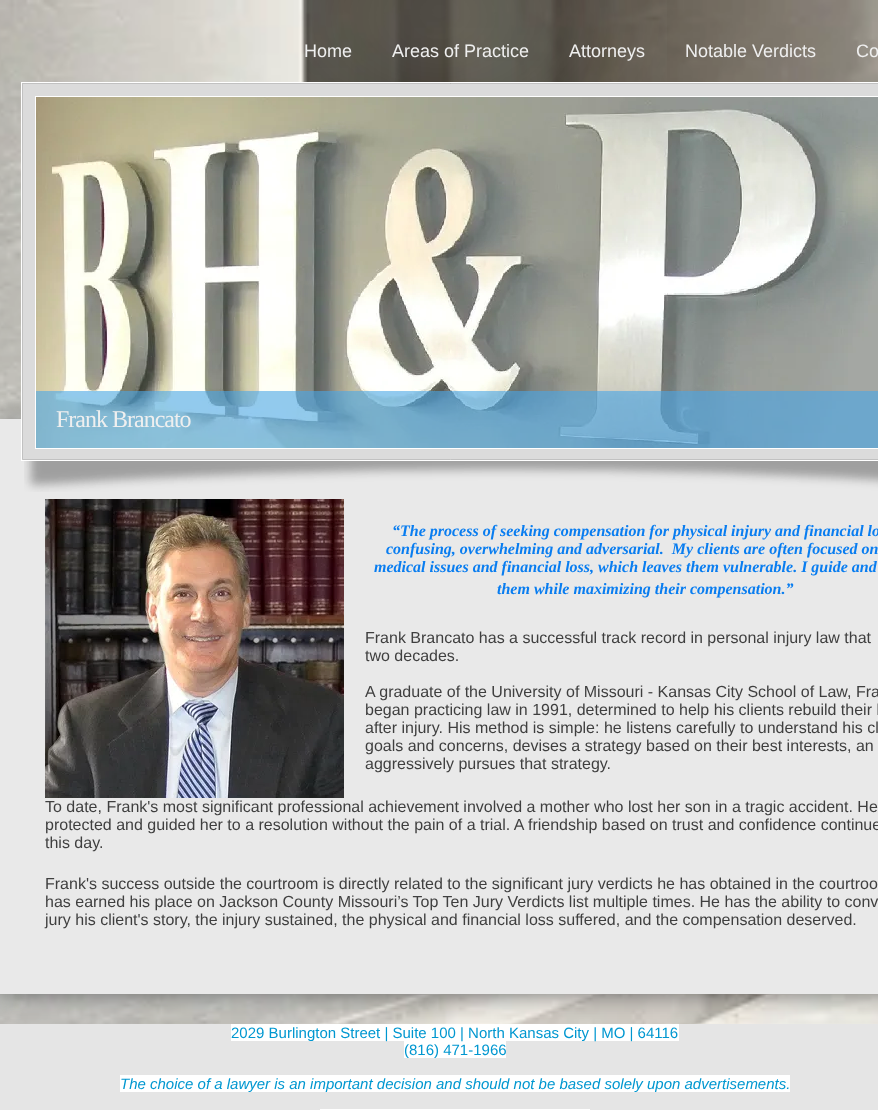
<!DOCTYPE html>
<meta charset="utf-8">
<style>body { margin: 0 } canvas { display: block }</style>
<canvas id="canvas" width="878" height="1110"></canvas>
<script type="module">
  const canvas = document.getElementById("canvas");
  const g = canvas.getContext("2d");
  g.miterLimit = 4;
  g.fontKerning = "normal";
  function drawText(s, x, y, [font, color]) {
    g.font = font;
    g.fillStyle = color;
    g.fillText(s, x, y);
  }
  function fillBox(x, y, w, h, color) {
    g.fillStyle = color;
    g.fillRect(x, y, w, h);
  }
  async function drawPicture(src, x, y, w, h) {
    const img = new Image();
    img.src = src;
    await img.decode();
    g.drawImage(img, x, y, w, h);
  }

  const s1 = ["18px Liberation Sans", "#EFEFEF"];
  const s2 = ["24px Liberation Serif", "#EFEFEF"];
  const s3 = ["italic bold 16px Liberation Serif", "#097DF0"];
  const s4 = ["16px Liberation Sans", "#3F3F3F"];
  const s5 = ["15px Liberation Sans", "#0097D0"];
  const s6 = ["italic 15px Liberation Sans", "#0097D0"];

  fillBox(0, 0, 878, 1110, "#FFFFFF");
  await drawPicture("pic1.png", 0, 0, 878, 1024);
  await drawPicture("pic2.png", 302, 0, 365, 82);
  drawText("Home", 304, 57, s1);
  drawText("Areas of Practice", 392, 57, s1);
  drawText("Attorneys", 569, 57, s1);
  drawText("Notable Verdicts", 685, 57, s1);
  drawText("Co", 856, 57, s1);
  fillBox(0, 1024, 878, 86, "#E5E5E5");
  fillBox(231, 1024, 448, 17, "#FFFFFF");
  g.fillStyle = "rgba(67, 69, 72, 0.75)";
  g.filter = "blur(12.5px)";
  g.beginPath();
  g.rect(0, 419, 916, 575);
  g.fill();
  g.filter = "none";
  fillBox(0, 419, 878, 575, "#E9E9E9");
  g.fillStyle = "#DBDBDB";
  g.beginPath();
  g.rect(22.5, 83.5, 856, 376);
  g.fill();
  g.strokeStyle = "#C1C1C1";
  g.stroke();
  g.strokeStyle = "#FFFFFF";
  g.strokeRect(21.5, 82.5, 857, 378);
  await drawPicture("pic3.png", 36, 97, 842, 351);
  g.strokeRect(35.5, 96.5, 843, 352);
  fillBox(36, 391, 842, 57, "rgba(73, 166, 231, 0.6)");
  g.letterSpacing = "-1px";
  drawText("Frank Brancato", 56, 427, s2);
  await drawPicture("pic4.png", 24, 461, 854, 31);
  await drawPicture("pic5.png", 45, 499, 299, 299);
  g.letterSpacing = "0px";
  drawText("“The process of seeking compensation for physical injury and financial lo", 392, 536, s3);
  drawText("confusing, overwhelming and adversarial.  My clients are often focused on", 386, 554, s3);
  drawText("medical issues and financial loss, which leaves them vulnerable. I guide and", 374, 572, s3);
  drawText("them while maximizing their compensation.”", 497, 594, s3);
  drawText("Frank Brancato has a successful track record in personal injury law that", 365, 643, s4);
  drawText("two decades.", 365, 661, s4);
  drawText("A graduate of the University of Missouri - Kansas City School of Law, Fra", 365, 697, s4);
  drawText("began practicing law in 1991, determined to help his clients rebuild their l", 365, 715, s4);
  drawText("after injury. His method is simple: he listens carefully to understand his cl", 365, 733, s4);
  drawText("goals and concerns, devises a strategy based on their best interests, an", 365, 751, s4);
  drawText("aggressively pursues that strategy.", 365, 769, s4);
  drawText("To date, Frank's most significant professional achievement involved a mother who lost her son in a tragic accident. He", 45, 812, s4);
  drawText("protected and guided her to a resolution without the pain of a trial. A friendship based on trust and confidence continue", 45, 830, s4);
  drawText("this day.", 45, 848, s4);
  drawText("Frank's success outside the courtroom is directly related to the significant jury verdicts he has obtained in the courtroo", 45, 889, s4);
  drawText("has earned his place on Jackson County Missouri’s Top Ten Jury Verdicts list multiple times. He has the ability to conv", 45, 907, s4);
  drawText("jury his client's story, the injury sustained, the physical and financial loss suffered, and the compensation deserved.", 45, 925, s4);
  fillBox(404, 1041, 102, 17, "#FFFFFF");
  drawText("2029 Burlington Street | Suite 100 | North Kansas City | MO | 64116", 231, 1038, s5);
  drawText("(816) 471-1966", 404, 1055, s5);
  fillBox(120, 1075, 670, 17, "#FFFFFF");
  drawText("The choice of a lawyer is an important decision and should not be based solely upon advertisements.", 120, 1089, s6);
  fillBox(320, 1109, 270, 1, "#FFFFFF");
</script>
